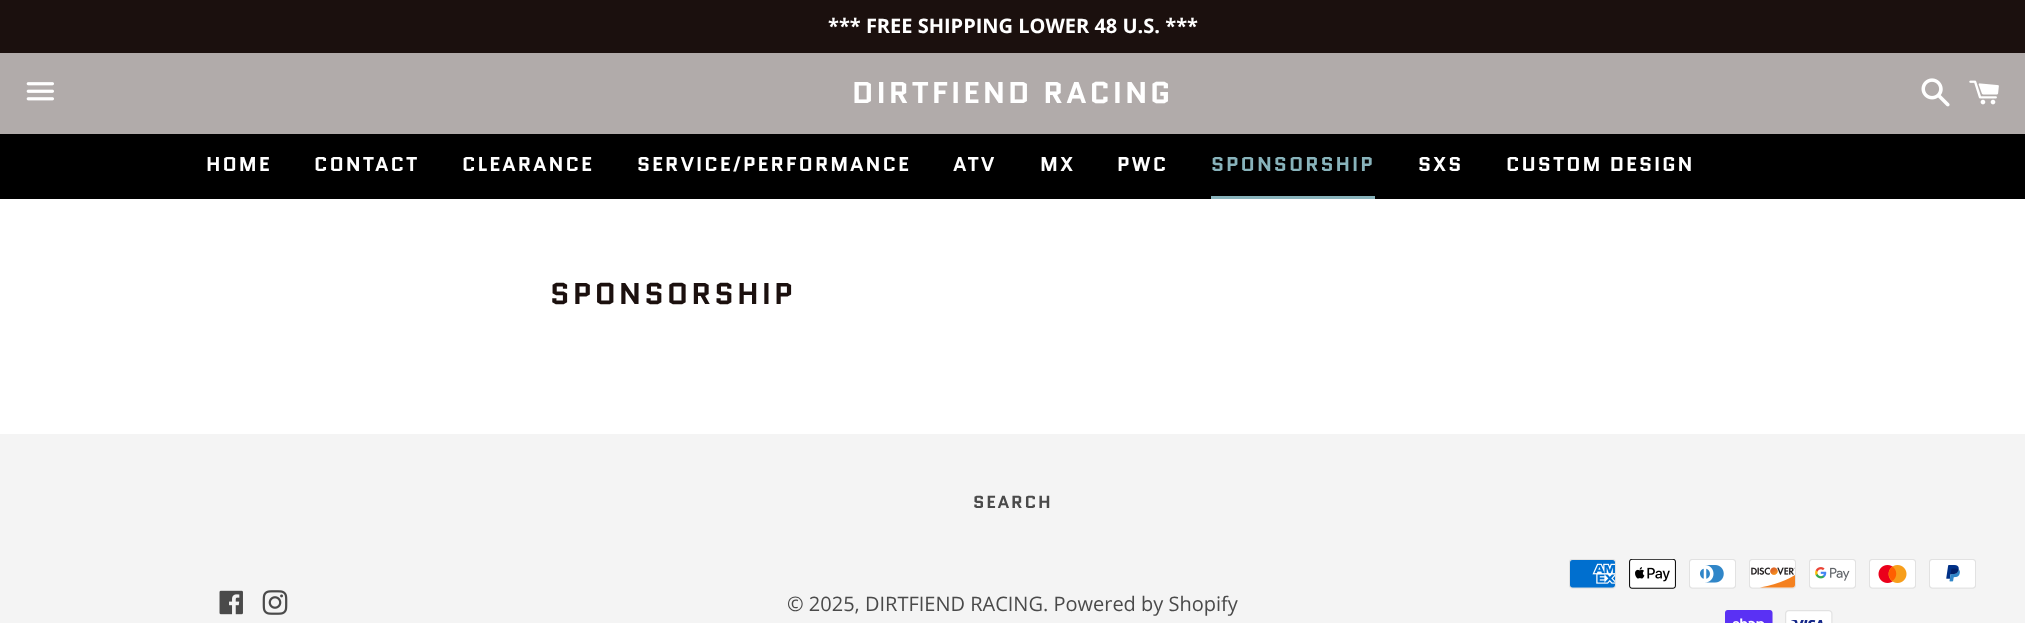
<!DOCTYPE html>
<meta charset="utf-8">
<style>body { margin: 0 } canvas { display: block }</style>
<canvas id="canvas" width="2025" height="623"></canvas>
<script type="module">
  const canvas = document.getElementById("canvas");
  const g = canvas.getContext("2d");
  g.miterLimit = 4;
  g.fontKerning = "normal";
  function drawText(s, x, y, [font, color]) {
    g.font = font;
    g.fillStyle = color;
    g.fillText(s, x, y);
  }
  function fillBox(x, y, w, h, color) {
    g.fillStyle = color;
    g.fillRect(x, y, w, h);
  }
  async function drawPicture(src, x, y, w, h) {
    const img = new Image();
    img.src = src;
    await img.decode();
    g.drawImage(img, x, y, w, h);
  }

  const s1 = ["bold 20px Open Sans", "#FFFFFF"];
  const s2 = ["bold 30px Quantico", "#FFFFFF"];
  const s3 = ["bold 20px Quantico", "#FFFFFF"];
  const s4 = ["bold 20px Quantico", "#88B3BB"];
  const s5 = ["bold 30px Quantico", "#1B100E"];
  const s6 = ["bold 17.5px Quantico", "#4A4A4A"];
  const s7 = ["20px Open Sans", "#4A4A4A"];

  fillBox(0, 0, 2025, 623, "#FFFFFF");
  fillBox(0, 0, 2025, 53, "#1B100E");
  drawText("*** FREE SHIPPING LOWER 48 U.S. ***", 828, 33, s1);
  fillBox(0, 53, 2025, 81, "#B1ABAA");
  await drawPicture("pic1.png", 26, 82, 28, 19);
  g.letterSpacing = "3px";
  drawText("DIRTFIEND RACING", 852, 103, s2);
  await drawPicture("pic2.png", 1921, 78, 29, 29);
  await drawPicture("pic3.png", 1969, 80, 30, 25);
  fillBox(0, 134, 2025, 65, "#000000");
  g.letterSpacing = "2px";
  drawText("HOME", 206, 171, s3);
  drawText("CONTACT", 314, 171, s3);
  drawText("CLEARANCE", 462, 171, s3);
  drawText("SERVICE/PERFORMANCE", 637, 171, s3);
  drawText("ATV", 953, 171, s3);
  drawText("MX", 1040, 171, s3);
  drawText("PWC", 1117, 171, s3);
  drawText("SPONSORSHIP", 1211, 171, s4);
  fillBox(1211, 196, 164, 3, "#88B3BB");
  drawText("SXS", 1418, 171, s3);
  drawText("CUSTOM DESIGN", 1506, 171, s3);
  g.letterSpacing = "3px";
  drawText("SPONSORSHIP", 550, 304, s5);
  fillBox(0, 434, 2025, 189, "#F4F4F4");
  g.letterSpacing = "1.75px";
  drawText("SEARCH", 973, 508, s6);
  await drawPicture("pic4.png", 219, 590, 24, 25);
  await drawPicture("pic5.png", 262, 590, 26, 25);
  g.letterSpacing = "0px";
  drawText("© 2025, DIRTFIEND RACING. Powered by Shopify", 787, 611, s7);
  await drawPicture("pic6.png", 1569, 559, 47, 30);
  await drawPicture("pic7.png", 1629, 559, 47, 30);
  await drawPicture("pic8.png", 1689, 559, 47, 30);
  await drawPicture("pic9.png", 1749, 559, 47, 30);
  await drawPicture("pic10.png", 1809, 559, 47, 30);
  await drawPicture("pic11.png", 1869, 559, 47, 30);
  await drawPicture("pic12.png", 1929, 559, 47, 30);
  await drawPicture("pic13.png", 1725, 610, 48, 13);
  await drawPicture("pic14.png", 1785, 610, 48, 13);
</script>
